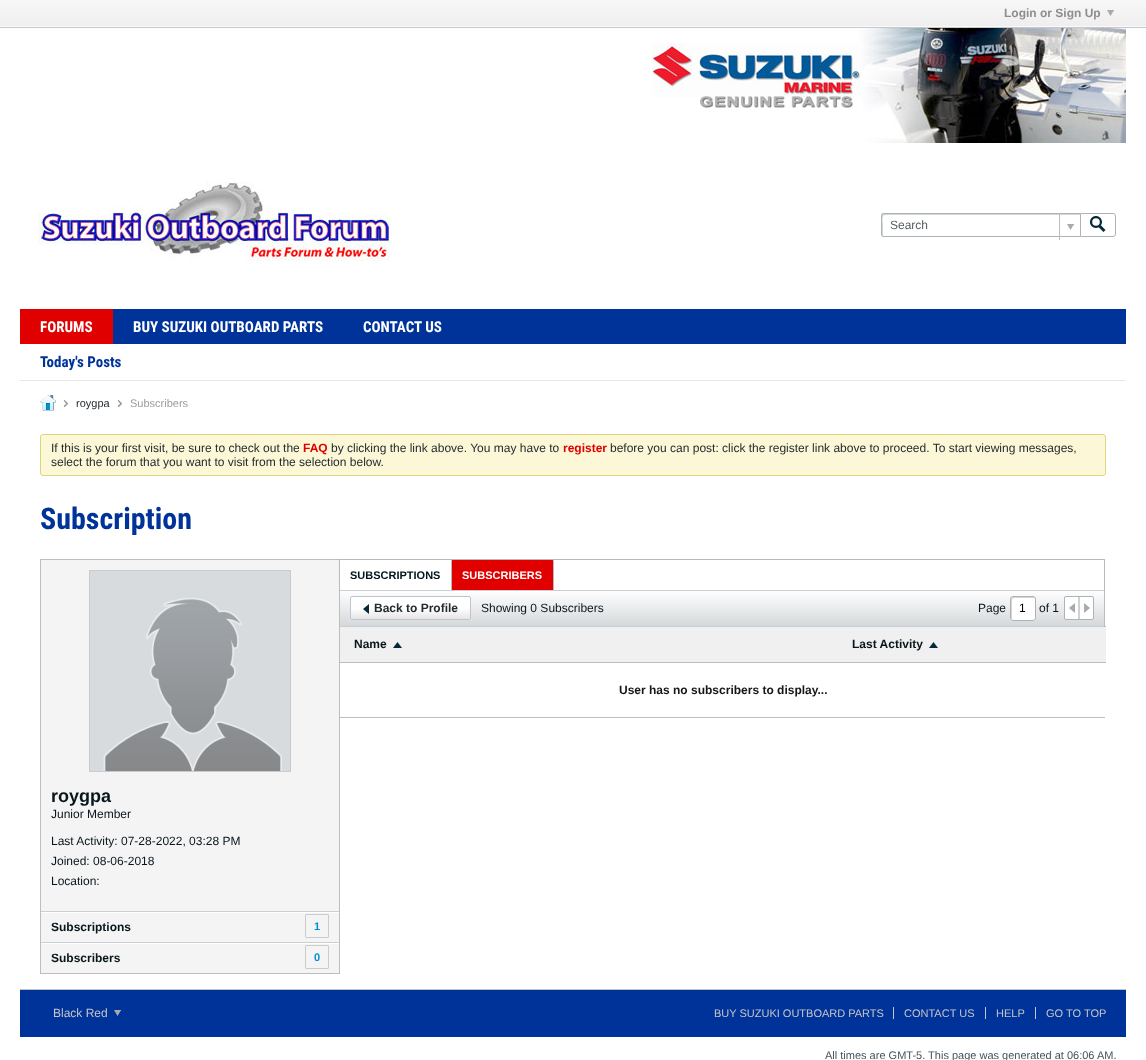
<!DOCTYPE html>
<meta charset="utf-8">
<style>body { margin: 0 } canvas { display: block }</style>
<canvas id="canvas" width="1146" height="1060"></canvas>
<script type="module">
  const canvas = document.getElementById("canvas");
  const g = canvas.getContext("2d");
  g.miterLimit = 4;
  g.fontKerning = "normal";
  function drawText(s, x, y, [font, color]) {
    g.font = font;
    g.fillStyle = color;
    g.fillText(s, x, y);
  }
  function fillBox(x, y, w, h, color) {
    g.fillStyle = color;
    g.fillRect(x, y, w, h);
  }
  function fillRounded(x, y, w, h, r, color) {
    g.fillStyle = color;
    g.beginPath();
    g.roundRect(x, y, w, h, r);
    g.fill();
  }
  async function drawPicture(src, x, y, w, h) {
    const img = new Image();
    img.src = src;
    await img.decode();
    g.drawImage(img, x, y, w, h);
  }
  let gradient;

  const s1 = ["bold 12px Liberation Sans", "#8E8E8E"];
  const s2 = ["12px Liberation Sans", "#556065"];
  const s3 = ["bold 15px Roboto Condensed", "#FFFFFF"];
  const s4 = ["bold 15px Roboto Condensed", "#003399"];
  const s5 = ["11px Liberation Sans", "#252C2F"];
  const s6 = ["11px Liberation Sans", "#9E9D9D"];
  const s7 = ["12px Liberation Sans", "#252C2F"];
  const s8 = ["bold 12px Liberation Sans", "#E00000"];
  const s9 = ["bold 30px Roboto Condensed", "#003399"];
  const s10 = ["bold 11px Liberation Sans", "#02151D"];
  const s11 = ["bold 11px Liberation Sans", "#FFFFFF"];
  const s12 = ["bold 12px Liberation Sans", "#252C2F"];
  const s13 = ["12px Liberation Sans", "#09161B"];
  const s14 = ["12px Liberation Sans", "#000000"];
  const s15 = ["bold 12px Liberation Sans", "#09161B"];
  const s16 = ["bold 12px Liberation Sans", "#161616"];
  const s17 = ["bold 18px Liberation Sans", "#09161B"];
  const s18 = ["bold 11px Liberation Sans", "#0093D2"];
  const s19 = ["12px Liberation Sans", "#C6C6C6"];
  const s20 = ["11px Liberation Sans", "#C6C6C6"];
  const s21 = ["11px Liberation Sans", "#43535E"];

  fillBox(0, 0, 1146, 1060, "#FFFFFF");
  gradient = g.createLinearGradient(573, 0, 573, 28);
  gradient.addColorStop(0, "#F8F8F8");
  gradient.addColorStop(1, "#EFEDEE");
  g.fillStyle = gradient;
  g.fillRect(0, 0, 1146, 26);
  drawText("Login or Sign Up", 1004, 17, s1);
  await drawPicture("pic1.png", 1107, 10, 7, 6);
  fillBox(0, 26, 1146, 1, "#FAFAFA");
  fillBox(0, 27, 1146, 1, "#C7C8C9");
  await drawPicture("pic2.png", 652, 28, 474, 115);
  await drawPicture("pic3.png", 38, 181, 352, 80);
  g.fillStyle = "#D5D5D5";
  g.beginPath();
  g.moveTo(885, 215);
  g.lineTo(1080, 215);
  g.lineTo(1080, 214);
  g.lineTo(884, 214);
  g.bezierCurveTo(883, 214, 882, 215, 882, 216);
  g.lineTo(882, 234);
  g.bezierCurveTo(882, 235, 883, 236, 883, 236);
  g.lineTo(883, 226);
  g.bezierCurveTo(883, 224, 881, 215, 885, 215);
  g.closePath();
  g.fill();
  g.fillStyle = "#AEB3B6";
  g.beginPath();
  g.moveTo(884, 213);
  g.lineTo(1080, 213);
  g.lineTo(1080, 237);
  g.lineTo(884, 237);
  g.bezierCurveTo(882, 237, 881, 236, 881, 234);
  g.lineTo(881, 216);
  g.bezierCurveTo(881, 214, 882, 213, 884, 213);
  g.closePath();
  g.moveTo(884, 214);
  g.lineTo(1080, 214);
  g.lineTo(1080, 236);
  g.lineTo(884, 236);
  g.bezierCurveTo(883, 236, 882, 235, 882, 234);
  g.lineTo(882, 216);
  g.bezierCurveTo(882, 215, 883, 214, 884, 214);
  g.closePath();
  g.fill("evenodd");
  drawText("Search", 890, 229, s2);
  fillBox(1059, 213, 1, 27, "#BDBDBD");
  await drawPicture("pic4.png", 1067, 224, 7, 6);
  g.beginPath();
  g.roundRect(1080.5, 213.5, 35, 23, [0, 2.5, 2.5, 0]);
  g.strokeStyle = "#AEB3B6";
  g.stroke();
  await drawPicture("pic5.png", 1090, 216, 16, 16);
  fillBox(113, 309, 1013, 35, "#003399");
  fillBox(20, 309, 93, 35, "#E00000");
  drawText("FORUMS", 40, 332, s3);
  drawText("BUY SUZUKI OUTBOARD PARTS", 133, 332, s3);
  drawText("CONTACT US", 363, 332, s3);
  fillBox(20, 380, 1106, 1, "#E7E7E7");
  drawText("Today's Posts", 40, 367, s4);
  await drawPicture("pic6.png", 40, 395, 16, 16);
  await drawPicture("pic7.png", 63, 400, 5, 7);
  drawText("roygpa", 76, 407, s5);
  await drawPicture("pic7.png", 117, 400, 5, 7);
  drawText("Subscribers", 130, 407, s6);
  g.fillStyle = "#FCF7D7";
  g.beginPath();
  g.roundRect(40.5, 434.5, 1065, 41, 2.5);
  g.fill();
  g.strokeStyle = "#E1D47E";
  g.stroke();
  drawText("If this is your first visit, be sure to check out the", 51, 452, s7);
  drawText("FAQ", 303, 452, s8);
  drawText("by clicking the link above. You may have to", 331, 452, s7);
  drawText("register", 563, 452, s8);
  drawText("before you can post: click the register link above to proceed. To start viewing messages,", 610, 452, s7);
  drawText("select the forum that you want to visit from the selection below.", 51, 466, s7);
  drawText("Subscription", 40, 529, s9);
  g.strokeStyle = "#BDBDBD";
  g.strokeRect(40.5, 559.5, 299, 414);
  g.strokeRect(339.5, 559.5, 765, 158);
  fillBox(339, 559, 766, 1, "#B9B9B9");
  fillBox(1104, 559, 1, 31, "#B9B9B9");
  fillBox(339, 559, 1, 31, "#B9B9B9");
  drawText("SUBSCRIPTIONS", 350, 579, s10);
  g.fillStyle = "#B9B9B9";
  g.beginPath();
  g.moveTo(454, 559);
  g.lineTo(551, 559);
  g.bezierCurveTo(553, 559, 554, 560, 554, 562);
  g.lineTo(554, 590);
  g.lineTo(451, 590);
  g.lineTo(451, 562);
  g.bezierCurveTo(451, 560, 452, 559, 454, 559);
  g.closePath();
  g.moveTo(454, 560);
  g.lineTo(551, 560);
  g.bezierCurveTo(552, 560, 553, 561, 553, 562);
  g.lineTo(553, 590);
  g.lineTo(452, 590);
  g.lineTo(452, 562);
  g.bezierCurveTo(452, 561, 453, 560, 454, 560);
  g.closePath();
  g.fill("evenodd");
  fillBox(452, 560, 101, 30, "#E00000");
  drawText("SUBSCRIBERS", 462, 579, s11);
  gradient = g.createLinearGradient(722, 591, 722, 626);
  gradient.addColorStop(0, "#FEFEFF");
  gradient.addColorStop(1, "#D5D8DA");
  g.fillStyle = gradient;
  g.fillRect(340, 592, 764, 34);
  fillBox(340, 590, 764, 1, "#C9CED2");
  fillBox(340, 626, 764, 1, "#C9CED2");
  fillRounded(350, 596, 121, 24, 2, "#FFFFFF");
  gradient = g.createLinearGradient(411, 619, 411, 597);
  gradient.addColorStop(0, "rgba(0, 0, 0, 0.1)");
  gradient.addColorStop(0.5, "rgba(0, 0, 0, 0)");
  gradient.addColorStop(0.5, "rgba(255, 255, 255, 0)");
  gradient.addColorStop(1, "rgba(255, 255, 255, 0.7)");
  g.fillStyle = gradient;
  g.fillRect(350, 609, 121, 10);
  g.beginPath();
  g.roundRect(350.5, 596.5, 120, 23, 1.5);
  g.strokeStyle = "#BFC5C9";
  g.stroke();
  await drawPicture("pic8.png", 363, 604, 6, 10);
  drawText("Back to Profile", 374, 612, s12);
  drawText("Showing 0 Subscribers", 481, 612, s13);
  drawText("Page", 978, 612, s13);
  fillRounded(1010, 596, 26, 25, 3, "#FFFFFF");
  g.fillStyle = "#D5D5D5";
  g.beginPath();
  g.moveTo(1014, 598);
  g.lineTo(1034, 598);
  g.lineTo(1035, 598);
  g.bezierCurveTo(1034.5, 597.5, 1034, 597, 1033, 597);
  g.lineTo(1013, 597);
  g.bezierCurveTo(1012, 597, 1011, 598, 1011, 599);
  g.lineTo(1011, 618);
  g.bezierCurveTo(1011, 619, 1011.5, 619.5, 1012, 620);
  g.lineTo(1012, 603);
  g.bezierCurveTo(1012, 602, 1011.5, 598, 1014, 598);
  g.closePath();
  g.fill();
  g.beginPath();
  g.roundRect(1010.5, 596.5, 25, 24, 2.5);
  g.strokeStyle = "#AEB3B6";
  g.stroke();
  drawText("1", 1019, 612, s14);
  drawText("of 1", 1039, 612, s13);
  g.fillStyle = "#FFFFFF";
  g.beginPath();
  g.roundRect(1064.5, 596.5, 29, 23, 1.5);
  g.fill();
  g.stroke();
  fillBox(1078, 597, 2, 22, "#CDD1D4");
  await drawPicture("pic9.png", 1069, 603, 6, 10);
  await drawPicture("pic10.png", 1084, 603, 6, 10);
  fillBox(340, 627, 766, 35, "#F0F0F0");
  fillBox(1104, 626, 2, 1, "#BDBDBD");
  fillBox(340, 662, 766, 1, "#BDBDBD");
  drawText("Name", 354, 648, s15);
  await drawPicture("pic11.png", 393, 642, 9, 6);
  drawText("Last Activity", 852, 648, s15);
  await drawPicture("pic11.png", 929, 642, 9, 6);
  fillBox(1104, 663, 1, 54, "#FFFFFF");
  drawText("User has no subscribers to display...", 619, 694, s16);
  fillBox(41, 560, 298, 413, "#F4F4F4");
  g.strokeStyle = "#C8CCCE";
  g.strokeRect(89.5, 570.5, 201, 201);
  await drawPicture("pic12.png", 90, 571, 200, 200);
  drawText("roygpa", 51, 802, s17);
  drawText("Junior Member", 51, 818, s13);
  drawText("Last Activity: 07-28-2022, 03:28 PM", 51, 845, s13);
  drawText("Joined: 08-06-2018", 51, 865, s13);
  drawText("Location:", 51, 885, s13);
  fillBox(41, 911, 298, 1, "#CACFD3");
  fillBox(41, 912, 298, 1, "#FFFFFF");
  fillBox(41, 942, 298, 1, "#CACFD3");
  drawText("Subscriptions", 51, 931, s15);
  g.beginPath();
  g.roundRect(305.5, 914.5, 23, 23, 0.5);
  g.stroke();
  drawText("1", 314, 930, s18);
  fillBox(41, 943, 298, 1, "#FFFFFF");
  drawText("Subscribers", 51, 962, s15);
  g.beginPath();
  g.roundRect(305.5, 945.5, 23, 23, 0.5);
  g.stroke();
  drawText("0", 314, 961, s18);
  fillBox(20, 990, 1106, 47, "#003399");
  fillBox(20, 989, 1106, 1, "#C2C2C2");
  drawText("Black Red", 53, 1017, s19);
  await drawPicture("pic13.png", 114, 1010, 7, 6);
  drawText("BUY SUZUKI OUTBOARD PARTS", 714, 1017, s20);
  drawText("CONTACT US", 904, 1017, s20);
  fillBox(893, 1007, 1, 12, "#C6C6C6");
  drawText("HELP", 996, 1017, s20);
  fillBox(985, 1007, 1, 12, "#C6C6C6");
  drawText("GO TO TOP", 1046, 1017, s20);
  fillBox(1035, 1007, 1, 12, "#C6C6C6");
  drawText("All times are GMT-5. This page was generated at 06:06 AM.", 825, 1059, s21);
</script>
